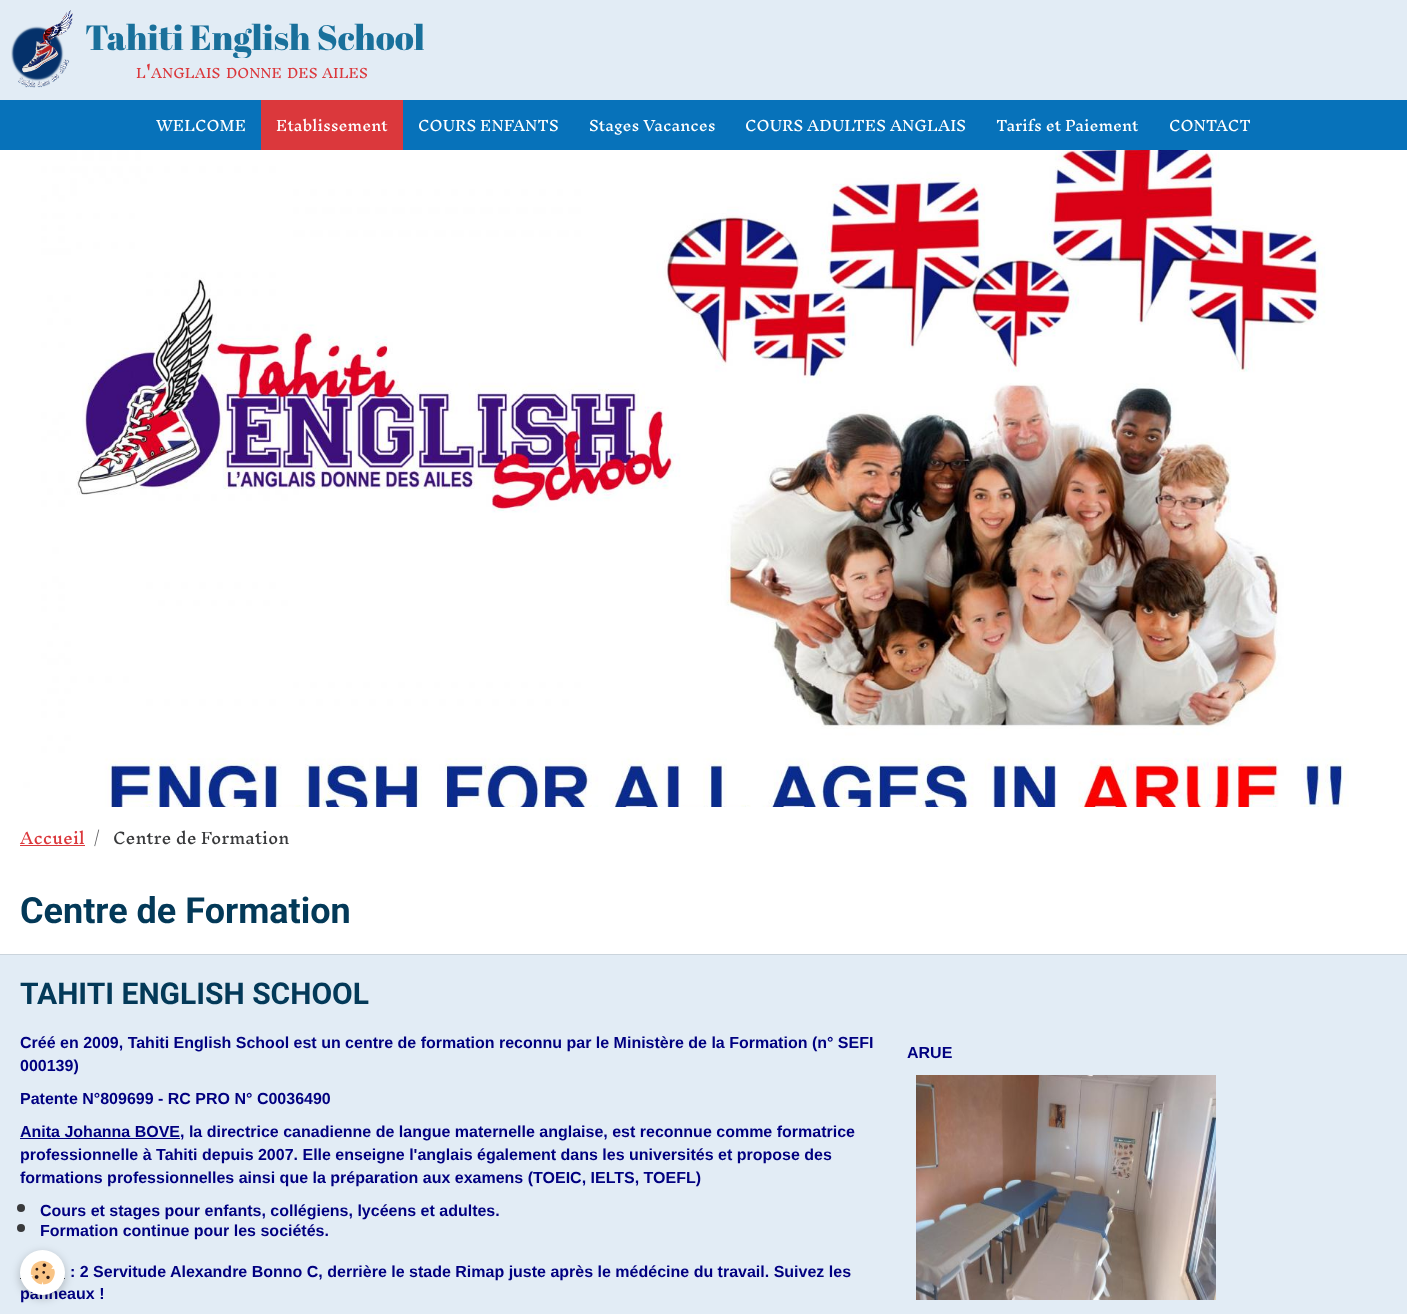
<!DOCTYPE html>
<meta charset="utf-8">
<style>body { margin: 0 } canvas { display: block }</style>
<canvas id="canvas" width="1407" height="1314"></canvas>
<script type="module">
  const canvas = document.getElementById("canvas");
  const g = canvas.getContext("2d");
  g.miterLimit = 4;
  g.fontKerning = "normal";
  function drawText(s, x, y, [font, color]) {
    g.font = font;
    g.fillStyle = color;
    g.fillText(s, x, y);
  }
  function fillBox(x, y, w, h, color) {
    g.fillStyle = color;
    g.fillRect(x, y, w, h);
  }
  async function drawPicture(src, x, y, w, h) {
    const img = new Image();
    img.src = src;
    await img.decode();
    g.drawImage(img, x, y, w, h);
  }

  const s1 = ["35px Abril Fatface", "#19709B"];
  const s2 = ["12.75px Inknut Antiqua", "#DB383C"];
  const s3 = ["18px Inknut Antiqua", "#DB383C"];
  const s4 = ["14px Inknut Antiqua", "#FFFFFF"];
  const s5 = ["15.4px Inknut Antiqua", "#DB383C"];
  const s6 = ["15.4px Inknut Antiqua", "#616163"];
  const s7 = ["15.4px Inknut Antiqua", "#393A3C"];
  const s8 = ["bold 36px Roboto", "#033958"];
  const s9 = ["bold 30px Roboto", "#033958"];
  const s10 = ["bold 16px Liberation Sans", "#000080"];

  fillBox(0, 0, 1407, 1314, "#E2ECF5");
  await drawPicture("pic1.png", 11, 10, 62, 78);
  g.save();
  g.beginPath();
  g.rect(85, 16, 339, 42);
  g.clip();
  drawText("Tahiti English School", 85, 50, s1);
  g.restore();
  drawText("L", 136, 78, s2);
  drawText("'", 146, 78, s3);
  drawText("ANGLAIS", 151, 78, s2);
  drawText("DONNE", 226, 78, s2);
  drawText("DES", 287, 78, s2);
  drawText("AILES", 322, 78, s2);
  fillBox(0, 100, 1407, 50, "#0772BA");
  drawText("WELCOME", 156, 131, s4);
  fillBox(261, 100, 142, 50, "#DB383C");
  drawText("Etablissement", 276, 131, s4);
  drawText("COURS ENFANTS", 418, 131, s4);
  drawText("Stages Vacances", 589, 131, s4);
  drawText("COURS ADULTES ANGLAIS", 745, 131, s4);
  drawText("Tarifs et Paiement", 996, 131, s4);
  drawText("CONTACT", 1169, 131, s4);
  await drawPicture("pic2.png", 0, 150, 1407, 657);
  fillBox(0, 807, 1407, 147, "#FFFFFF");
  drawText("Accueil", 20, 844, s5);
  fillBox(20, 845, 65, 1, "#DB383C");
  drawText("/", 94, 844, s6);
  drawText("Centre de Formation", 113, 844, s7);
  fillBox(0, 954, 1407, 1, "#CBD4DC");
  drawText("Centre de Formation", 20, 923, s8);
  drawText("TAHITI ENGLISH SCHOOL", 20, 1004, s9);
  drawText("Créé en 2009, Tahiti English School est un centre de formation reconnu par le Ministère de la Formation (n° SEFI", 20, 1048, s10);
  drawText("000139)", 20, 1071, s10);
  drawText("Patente N°809699 - RC PRO N° C0036490", 20, 1104, s10);
  fillBox(20, 1138, 160, 1, "#000080");
  drawText("Anita Johanna BOVE, la directrice canadienne de langue maternelle anglaise, est reconnue comme formatrice", 20, 1137, s10);
  drawText("professionnelle à Tahiti depuis 2007. Elle enseigne l'anglais également dans les universités et propose des", 20, 1160, s10);
  drawText("formations professionnelles ainsi que la préparation aux examens (TOEIC, IELTS, TOEFL)", 20, 1183, s10);
  g.fillStyle = "#393A3C";
  g.beginPath();
  g.arc(21, 1208, 4, 0, Math.PI * 2);
  g.fill();
  drawText("Cours et stages pour enfants, collégiens, lycéens et adultes.", 40, 1216, s10);
  g.fillStyle = "#393A3C";
  g.beginPath();
  g.arc(21, 1228, 4, 0, Math.PI * 2);
  g.fill();
  drawText("Formation continue pour les sociétés.", 40, 1236, s10);
  drawText(": 2 Servitude Alexandre Bonno C, derrière le stade Rimap juste après le médécine du travail. Suivez les", 70, 1277, s10);
  fillBox(20, 1278, 45, 1, "#393A3C");
  drawText("panneaux !", 20, 1299, s10);
  drawText("ARUE", 907, 1058, s10);
  await drawPicture("pic3.png", 916, 1075, 300, 225);
  g.fillStyle = "rgba(0, 0, 0, 0.24)";
  g.filter = "blur(5px)";
  g.beginPath();
  g.roundRect(20, 1253, 45, 45, 22.5);
  g.fill();
  g.filter = "none";
  g.fillStyle = "#FFFFFF";
  g.beginPath();
  g.arc(42.5, 1272.5, 22.5, 0, Math.PI * 2);
  g.fill();
  await drawPicture("pic4.png", 30, 1260, 25, 25);
</script>
